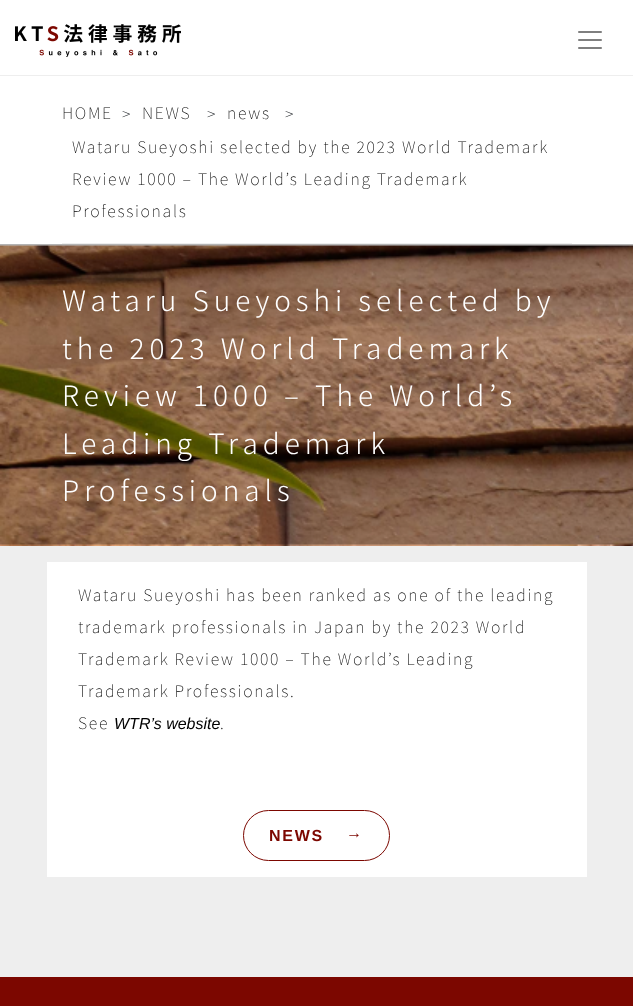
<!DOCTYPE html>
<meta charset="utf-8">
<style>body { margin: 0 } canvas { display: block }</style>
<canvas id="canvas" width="633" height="1006"></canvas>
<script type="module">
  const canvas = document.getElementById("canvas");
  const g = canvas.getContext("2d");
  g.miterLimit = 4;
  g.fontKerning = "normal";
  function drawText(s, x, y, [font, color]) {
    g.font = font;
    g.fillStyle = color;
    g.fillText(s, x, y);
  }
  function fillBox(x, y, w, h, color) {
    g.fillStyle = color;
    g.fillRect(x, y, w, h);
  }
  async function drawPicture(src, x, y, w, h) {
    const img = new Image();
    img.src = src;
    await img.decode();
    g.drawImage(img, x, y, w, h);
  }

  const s1 = ["100 16px Noto Sans JP", "#000000"];
  const s2 = ["100 16px Noto Sans JP", "#212529"];
  const s3 = ["300 28px Noto Sans JP", "#FFFFFF"];
  const s4 = ["italic 16px Liberation Sans", "#000000"];
  const s5 = ["bold 16px Liberation Sans", "#7C0700"];

  fillBox(0, 0, 633, 1006, "#FFFFFF");
  fillBox(0, 75, 633, 1, "#EEEEEE");
  await drawPicture("pic1.png", 15, 24, 166, 33);
  await drawPicture("pic2.png", 578, 31, 24, 18);
  fillBox(62, 243, 510, 1, "#EEEEEE");
  g.letterSpacing = "1.7px";
  drawText("HOME", 62, 119, s1);
  drawText(">", 122, 120, s2);
  drawText("NEWS", 142, 119, s1);
  drawText(">", 207, 120, s2);
  drawText("news", 227, 119, s1);
  drawText(">", 285, 120, s2);
  drawText("Wataru Sueyoshi selected by the 2023 World Trademark", 72, 153, s1);
  drawText("Review 1000 – The World’s Leading Trademark", 72, 185, s1);
  drawText("Professionals", 72, 217, s1);
  await drawPicture("pic3.png", 0, 244, 633, 302);
  g.letterSpacing = "5px";
  drawText("Wataru Sueyoshi selected by", 62, 311, s3);
  drawText("the 2023 World Trademark", 62, 359, s3);
  drawText("Review 1000 – The World’s", 62, 406, s3);
  drawText("Leading Trademark", 62, 454, s3);
  drawText("Professionals", 62, 501, s3);
  fillBox(0, 546, 633, 431, "#EEEEEE");
  fillBox(47, 562, 540, 315, "#FFFFFF");
  g.letterSpacing = "1.7px";
  drawText("Wataru Sueyoshi has been ranked as one of the leading", 78, 601, s1);
  drawText("trademark professionals in Japan by the 2023 World", 78, 633, s1);
  drawText("Trademark Review 1000 – The World’s Leading", 78, 665, s1);
  drawText("Trademark Professionals.", 78, 697, s1);
  drawText("See", 78, 729, s1);
  g.letterSpacing = "0px";
  drawText("WTR’s website", 114, 729, s4);
  g.letterSpacing = "1.7px";
  drawText(".", 220, 729, s1);
  g.beginPath();
  g.roundRect(243.5, 810.5, 146, 50, 25);
  g.strokeStyle = "#7C0700";
  g.stroke();
  drawText("NEWS", 269, 841, s5);
  drawText("→", 346, 838, s5);
  fillBox(0, 977, 633, 29, "#7C0700");
</script>
